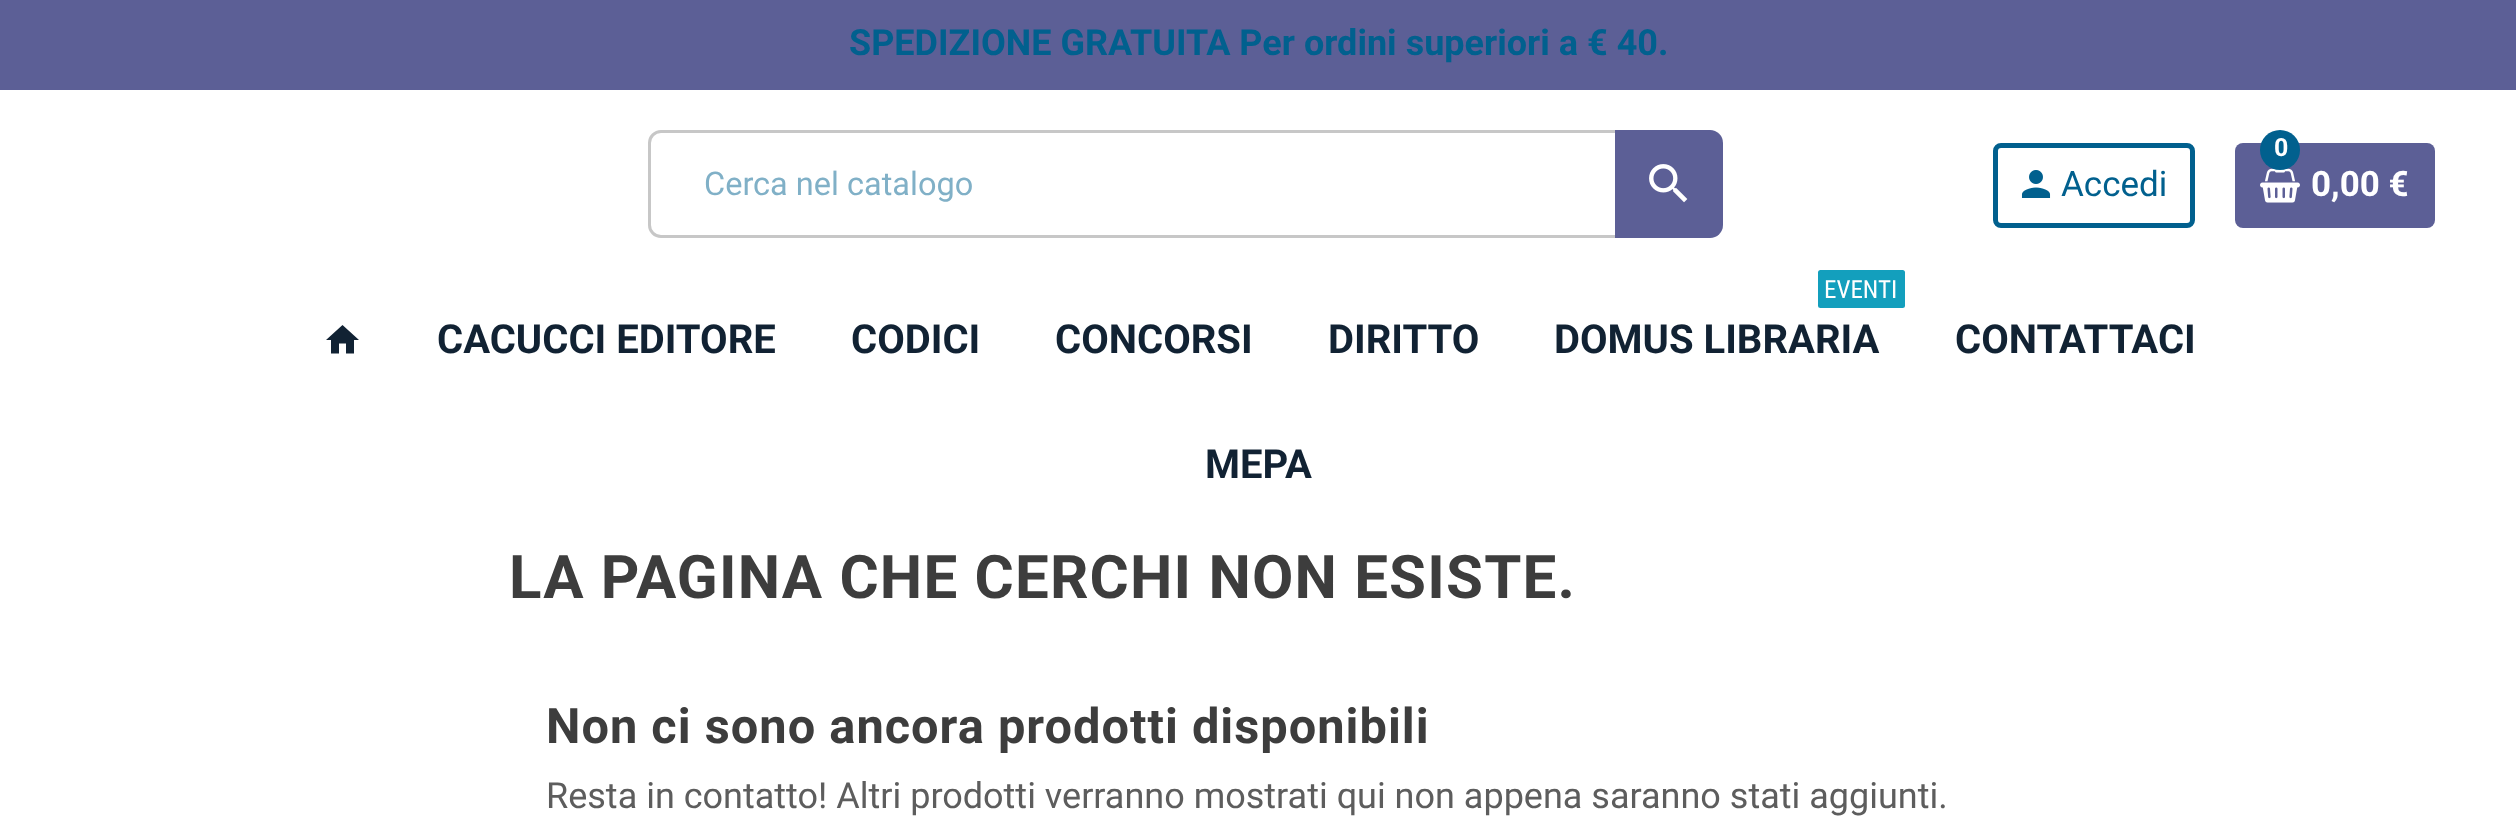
<!DOCTYPE html>
<meta charset="utf-8">
<style>body { margin: 0 } canvas { display: block }</style>
<canvas id="canvas" width="2516" height="837"></canvas>
<script type="module">
  const canvas = document.getElementById("canvas");
  const g = canvas.getContext("2d");
  g.miterLimit = 4;
  g.fontKerning = "normal";
  function drawText(s, x, y, [font, color]) {
    g.font = font;
    g.fillStyle = color;
    g.fillText(s, x, y);
  }
  function fillBox(x, y, w, h, color) {
    g.fillStyle = color;
    g.fillRect(x, y, w, h);
  }
  function fillRounded(x, y, w, h, r, color) {
    g.fillStyle = color;
    g.beginPath();
    g.roundRect(x, y, w, h, r);
    g.fill();
  }
  async function drawPicture(src, x, y, w, h) {
    const img = new Image();
    img.src = src;
    await img.decode();
    g.drawImage(img, x, y, w, h);
  }

  const s1 = ["bold 36px Roboto", "#01608E"];
  const s2 = ["32.5px Roboto", "#80B0C7"];
  const s3 = ["35px Roboto", "#01608E"];
  const s4 = ["bold 25px Roboto", "#FFFFFF"];
  const s5 = ["bold 35px Roboto", "#FFFFFF"];
  const s6 = ["bold 40px 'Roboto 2'", "#112233"];
  const s7 = ["25px Roboto Condensed", "#FFFFFF"];
  const s8 = ["bold 60px 'Roboto 2'", "#3D3D3D"];
  const s9 = ["bold 48.75px 'Roboto 2'", "#3D3D3D"];
  const s10 = ["36px Roboto", "#5D5D5D"];

  fillBox(0, 0, 2516, 837, "#FFFFFF");
  fillBox(0, 0, 2516, 90, "#5C5F96");
  drawText("SPEDIZIONE GRATUITA Per ordini superiori a € 40.", 849, 55, s1);
  g.beginPath();
  g.roundRect(649.5, 131.5, 1069, 105, 11.5);
  g.strokeStyle = "#C7C7C7";
  g.lineWidth = 3;
  g.stroke();
  drawText("Cerca nel catalogo", 704, 195, s2);
  g.fillStyle = "#5C5F96";
  g.beginPath();
  g.roundRect(1615, 130, 108, 108, [0, 13, 13, 0]);
  g.fill();
  await drawPicture("pic1.png", 1649, 164, 39, 39);
  g.beginPath();
  g.roundRect(1995.5, 145.5, 197, 80, 5.5);
  g.strokeStyle = "#01608E";
  g.lineWidth = 5;
  g.stroke();
  await drawPicture("pic2.png", 2021, 170, 30, 28);
  drawText("Accedi", 2061, 196, s3);
  fillRounded(2235, 143, 200, 85, 8, "#5C5F96");
  await drawPicture("pic3.png", 2260, 168, 40, 35);
  g.fillStyle = "#01608E";
  g.beginPath();
  g.arc(2280, 150, 20, 0, Math.PI * 2);
  g.fill();
  drawText("0", 2274, 156, s4);
  drawText("0,00 €", 2311, 196, s5);
  g.fillStyle = "#112233";
  g.beginPath();
  g.moveTo(339, 353.5);
  g.lineTo(331, 353.5);
  g.lineTo(331, 340);
  g.lineTo(326, 340);
  g.lineTo(342.5, 325);
  g.lineTo(359, 340);
  g.lineTo(354, 340);
  g.lineTo(354, 353.5);
  g.lineTo(346, 353.5);
  g.lineTo(346, 343.5);
  g.lineTo(339, 343.5);
  g.closePath();
  g.fill();
  drawText("CACUCCI EDITORE", 437, 353, s6);
  drawText("CODICI", 851, 353, s6);
  drawText("CONCORSI", 1055, 353, s6);
  drawText("DIRITTO", 1328, 353, s6);
  fillRounded(1818, 270, 87, 38, 2.5, "#139FBD");
  drawText("EVENTI", 1824, 298, s7);
  drawText("DOMUS LIBRARIA", 1554, 353, s6);
  drawText("CONTATTACI", 1955, 353, s6);
  drawText("MEPA", 1205, 478, s6);
  g.letterSpacing = "1.2px";
  drawText("LA PAGINA CHE CERCHI NON ESISTE.", 509, 598, s8);
  g.letterSpacing = "1px";
  drawText("Non ci sono ancora prodotti disponibili", 546, 743, s9);
  g.letterSpacing = "0px";
  drawText("Resta in contatto! Altri prodotti verranno mostrati qui non appena saranno stati aggiunti.", 546, 808, s10);
</script>
